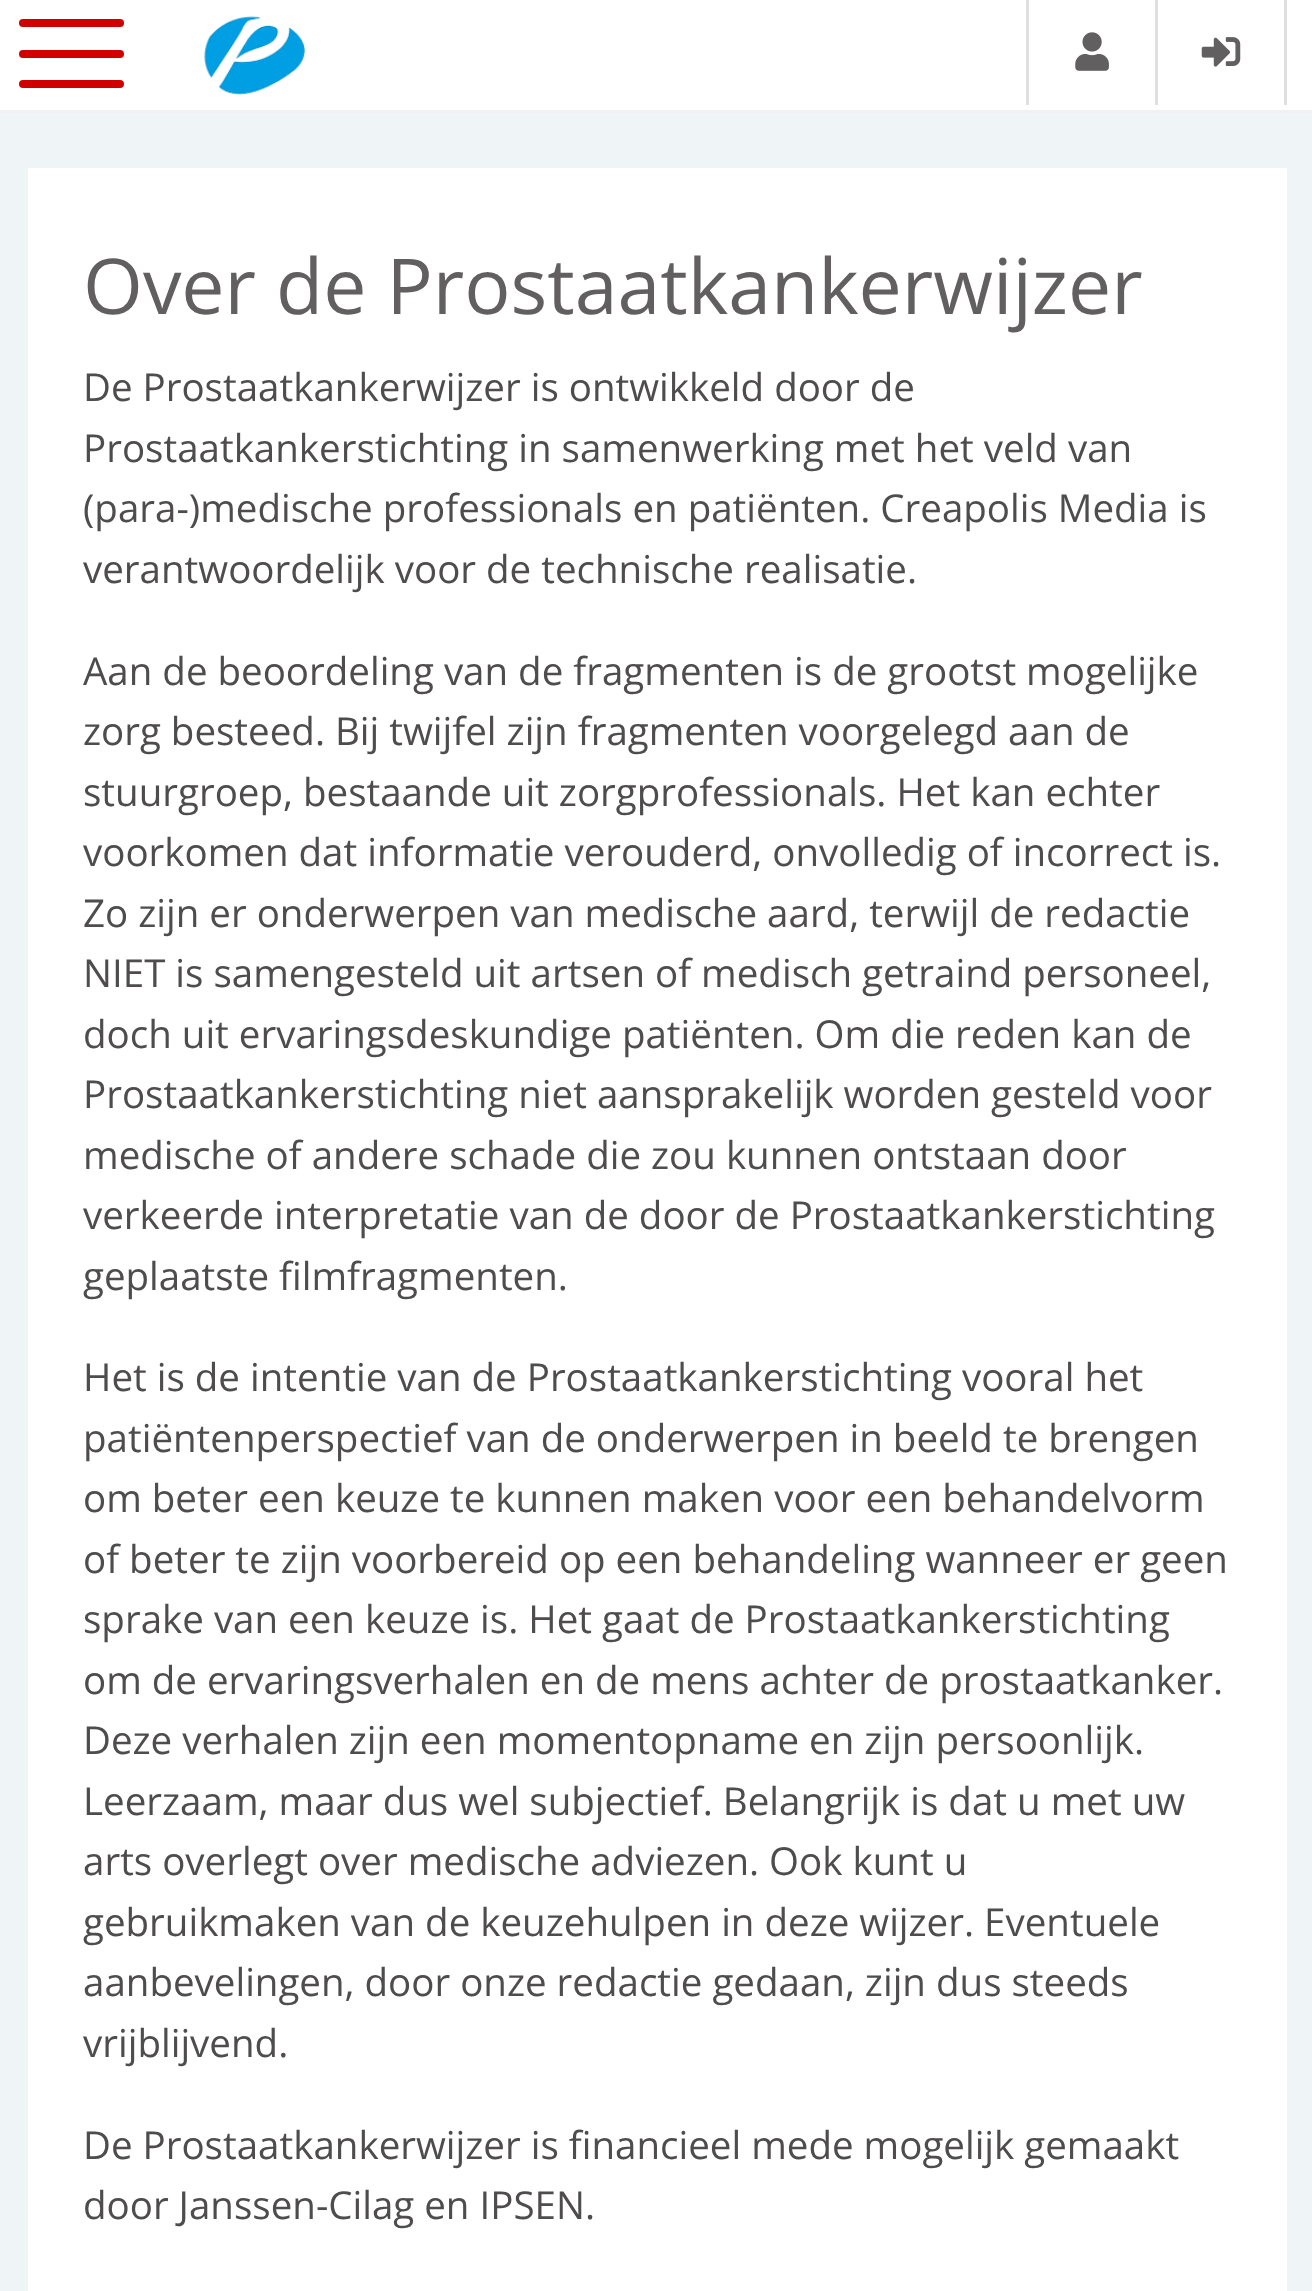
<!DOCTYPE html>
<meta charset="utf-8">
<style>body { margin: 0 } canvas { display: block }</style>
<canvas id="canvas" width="1312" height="2291"></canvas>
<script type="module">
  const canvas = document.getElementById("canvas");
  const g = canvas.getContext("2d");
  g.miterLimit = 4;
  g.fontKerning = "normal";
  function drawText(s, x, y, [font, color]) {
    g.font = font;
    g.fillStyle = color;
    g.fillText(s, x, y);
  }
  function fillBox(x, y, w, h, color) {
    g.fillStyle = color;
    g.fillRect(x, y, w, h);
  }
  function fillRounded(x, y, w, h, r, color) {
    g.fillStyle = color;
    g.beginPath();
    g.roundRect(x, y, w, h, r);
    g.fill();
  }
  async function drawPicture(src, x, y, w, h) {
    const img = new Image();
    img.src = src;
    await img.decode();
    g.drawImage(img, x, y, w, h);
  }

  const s1 = ["77px Open Sans", "#615F5F"];
  const s2 = ["38.5px Open Sans", "#4E4C4C"];

  fillBox(0, 0, 1312, 2291, "#EFF5F7");
  fillBox(0, 0, 1312, 110, "#FFFFFF");
  fillRounded(19, 50, 105, 8, 4, "#D00000");
  fillRounded(19, 19, 105, 8, 4, "#D00000");
  fillRounded(19, 80, 105, 8, 4, "#D00000");
  fillBox(0, 110, 1312, 3, "#F1F1F1");
  await drawPicture("pic1.png", 204, 16, 101, 79);
  fillBox(1155, 0, 3, 105, "#DFDFDF");
  fillBox(1026, 0, 3, 105, "#DFDFDF");
  await drawPicture("pic2.png", 1075, 32, 34, 39);
  fillBox(1284, 0, 3, 105, "#DFDFDF");
  await drawPicture("pic3.png", 1201, 37, 40, 30);
  fillBox(28, 168, 1259, 2123, "#FFFFFF");
  drawText("Over de Prostaatkankerwijzer", 83, 314, s1);
  drawText("De Prostaatkankerwijzer is ontwikkeld door de", 83, 401, s2);
  drawText("Prostaatkankerstichting in samenwerking met het veld van", 83, 462, s2);
  drawText("(para-)medische professionals en patiënten. Creapolis Media is", 83, 522, s2);
  drawText("verantwoordelijk voor de technische realisatie.", 83, 583, s2);
  drawText("Aan de beoordeling van de fragmenten is de grootst mogelijke", 83, 685, s2);
  drawText("zorg besteed. Bij twijfel zijn fragmenten voorgelegd aan de", 83, 745, s2);
  drawText("stuurgroep, bestaande uit zorgprofessionals. Het kan echter", 83, 806, s2);
  drawText("voorkomen dat informatie verouderd, onvolledig of incorrect is.", 83, 866, s2);
  drawText("Zo zijn er onderwerpen van medische aard, terwijl de redactie", 83, 927, s2);
  drawText("NIET is samengesteld uit artsen of medisch getraind personeel,", 83, 987, s2);
  drawText("doch uit ervaringsdeskundige patiënten. Om die reden kan de", 83, 1048, s2);
  drawText("Prostaatkankerstichting niet aansprakelijk worden gesteld voor", 83, 1108, s2);
  drawText("medische of andere schade die zou kunnen ontstaan door", 83, 1169, s2);
  drawText("verkeerde interpretatie van de door de Prostaatkankerstichting", 83, 1229, s2);
  drawText("geplaatste filmfragmenten.", 83, 1290, s2);
  drawText("Het is de intentie van de Prostaatkankerstichting vooral het", 83, 1391, s2);
  drawText("patiëntenperspectief van de onderwerpen in beeld te brengen", 83, 1452, s2);
  drawText("om beter een keuze te kunnen maken voor een behandelvorm", 83, 1512, s2);
  drawText("of beter te zijn voorbereid op een behandeling wanneer er geen", 83, 1573, s2);
  drawText("sprake van een keuze is. Het gaat de Prostaatkankerstichting", 83, 1633, s2);
  drawText("om de ervaringsverhalen en de mens achter de prostaatkanker.", 83, 1694, s2);
  drawText("Deze verhalen zijn een momentopname en zijn persoonlijk.", 83, 1754, s2);
  drawText("Leerzaam, maar dus wel subjectief. Belangrijk is dat u met uw", 83, 1815, s2);
  drawText("arts overlegt over medische adviezen. Ook kunt u", 83, 1875, s2);
  drawText("gebruikmaken van de keuzehulpen in deze wijzer. Eventuele", 83, 1936, s2);
  drawText("aanbevelingen, door onze redactie gedaan, zijn dus steeds", 83, 1996, s2);
  drawText("vrijblijvend.", 83, 2057, s2);
  drawText("De Prostaatkankerwijzer is financieel mede mogelijk gemaakt", 83, 2159, s2);
  drawText("door Janssen-Cilag en IPSEN.", 83, 2219, s2);
</script>
